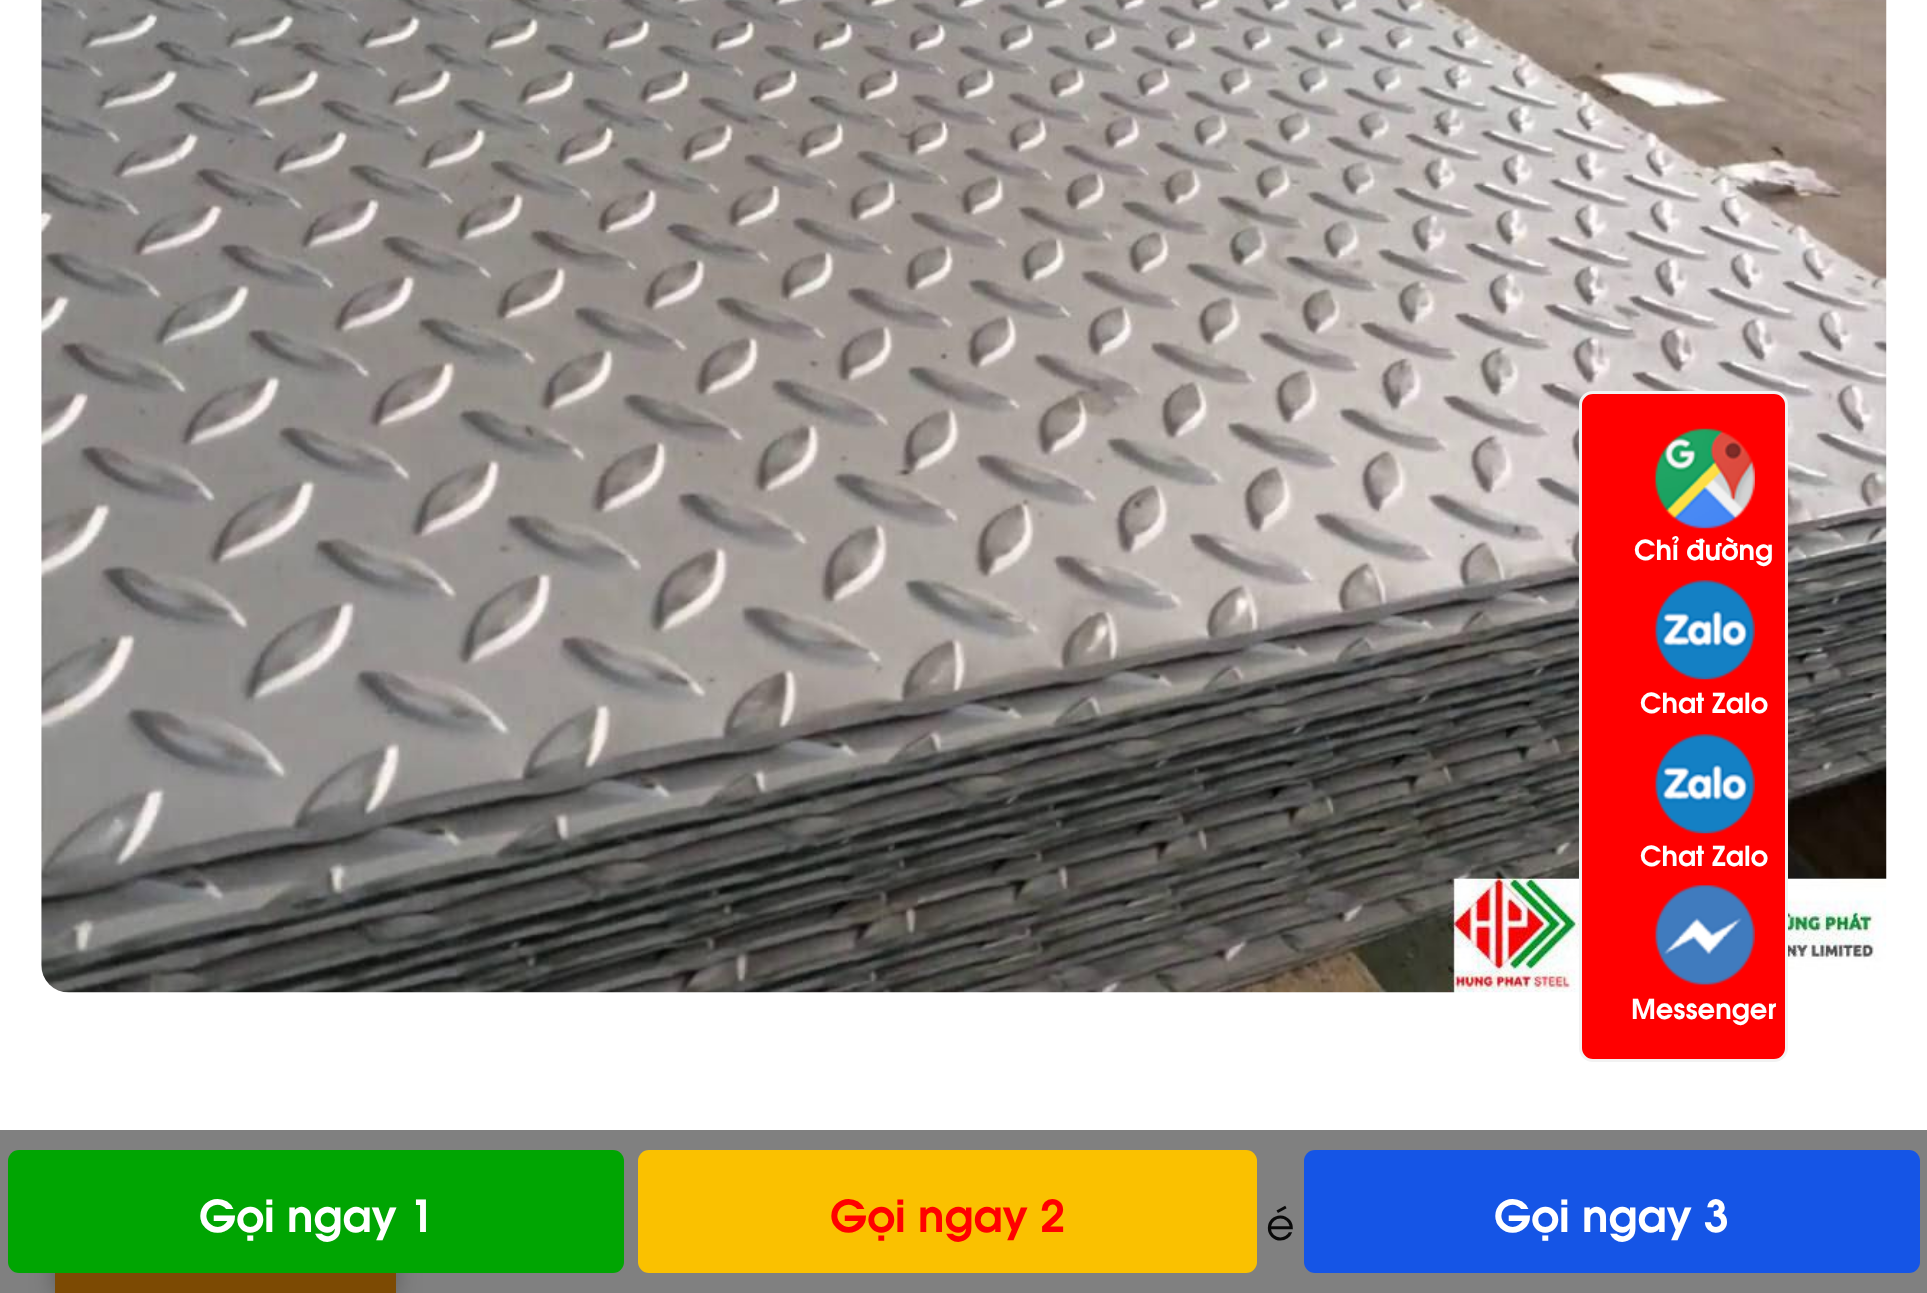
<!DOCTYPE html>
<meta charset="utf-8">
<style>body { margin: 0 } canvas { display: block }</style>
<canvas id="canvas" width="1927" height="1293"></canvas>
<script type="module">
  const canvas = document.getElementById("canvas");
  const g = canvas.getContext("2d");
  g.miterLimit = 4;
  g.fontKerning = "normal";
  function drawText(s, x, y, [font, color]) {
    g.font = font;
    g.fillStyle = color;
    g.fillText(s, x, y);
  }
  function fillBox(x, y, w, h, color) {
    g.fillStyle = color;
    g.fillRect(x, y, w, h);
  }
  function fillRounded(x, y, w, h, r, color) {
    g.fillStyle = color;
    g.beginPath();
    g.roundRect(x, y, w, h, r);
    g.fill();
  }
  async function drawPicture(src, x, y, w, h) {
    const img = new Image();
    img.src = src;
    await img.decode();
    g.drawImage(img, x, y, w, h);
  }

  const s1 = ["bold 27.5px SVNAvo", "#FFFFFF"];
  const s2 = ["bold 44px SVNAvo", "#FFFFFF"];
  const s3 = ["bold 44px SVNAvo", "#FF0000"];
  const s4 = ["44px SVNAvo", "#090909"];

  fillBox(0, 0, 1927, 1293, "#FFFFFF");
  await drawPicture("pic4.png", 41, 0, 1846, 993);
  g.fillStyle = "#FF0000";
  g.beginPath();
  g.roundRect(1580.5, 392.5, 206, 668, 12.5);
  g.fill();
  g.strokeStyle = "#F2F2F2";
  g.lineWidth = 3;
  g.stroke();
  await drawPicture("pic1.png", 1654, 428, 101, 101);
  drawText("Chỉ đường", 1634, 560, s1);
  await drawPicture("pic2.png", 1654, 580, 101, 100);
  drawText("Chat Zalo", 1640, 713, s1);
  await drawPicture("pic2.png", 1654, 734, 101, 100);
  drawText("Chat Zalo", 1640, 866, s1);
  await drawPicture("pic3.png", 1654, 885, 101, 101);
  drawText("Messenger", 1631, 1019, s1);
  fillBox(0, 1130, 1927, 163, "#808080");
  g.fillStyle = "rgba(0, 0, 0, 0.3)";
  g.filter = "blur(12.5px)";
  g.beginPath();
  g.rect(55, 1199, 341, 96);
  g.fill();
  g.filter = "none";
  fillBox(55, 1273, 341, 20, "#7C4A03");
  fillRounded(8, 1150, 616, 123, 11, "#00A502");
  drawText("Gọi ngay 1", 199, 1232, s2);
  fillRounded(638, 1150, 619, 123, 11, "#FAC100");
  drawText("Gọi ngay 2", 830, 1232, s3);
  fillRounded(1304, 1150, 616, 123, 11, "#1555E6");
  drawText("Gọi ngay 3", 1494, 1232, s2);
  drawText("é", 1266, 1240, s4);
</script>
